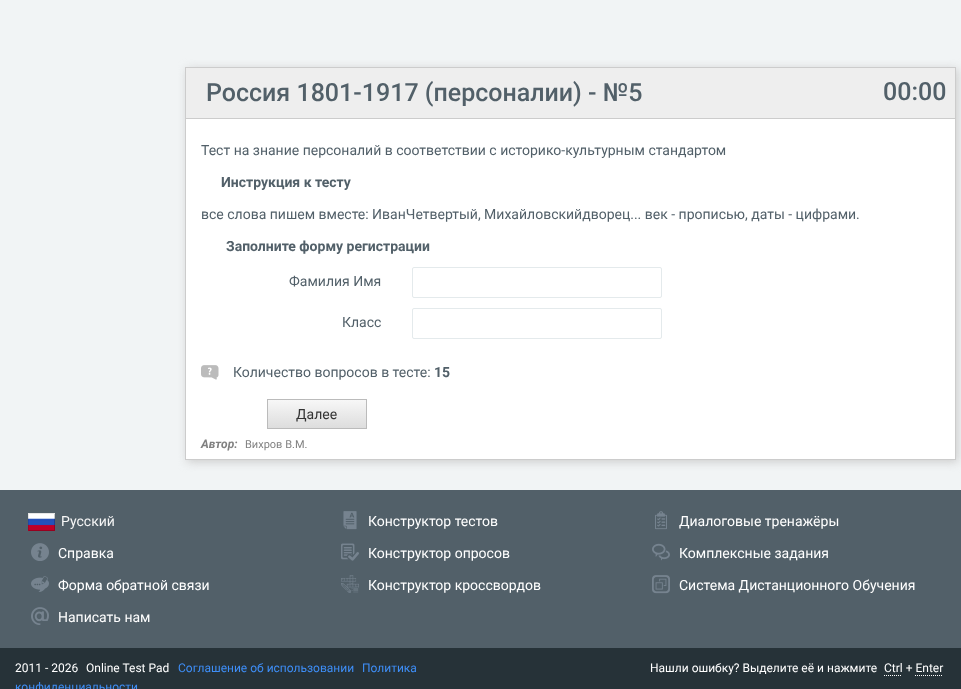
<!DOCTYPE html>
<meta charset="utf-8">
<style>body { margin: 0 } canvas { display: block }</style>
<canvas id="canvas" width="961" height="689"></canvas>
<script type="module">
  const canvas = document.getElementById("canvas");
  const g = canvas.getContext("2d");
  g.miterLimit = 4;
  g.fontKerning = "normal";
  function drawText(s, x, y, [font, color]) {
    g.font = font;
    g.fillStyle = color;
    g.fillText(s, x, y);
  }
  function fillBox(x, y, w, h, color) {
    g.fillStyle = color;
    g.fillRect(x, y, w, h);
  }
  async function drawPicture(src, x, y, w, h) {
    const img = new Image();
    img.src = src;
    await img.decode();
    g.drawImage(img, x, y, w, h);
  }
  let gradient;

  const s1 = ["500 25px Roboto", "#526069"];
  const s2 = ["14px Roboto", "#526069"];
  const s3 = ["bold 14px Roboto", "#526069"];
  const s4 = ["14px Roboto", "#333333"];
  const s5 = ["italic bold 12px Roboto", "#808080"];
  const s6 = ["11px Roboto", "#808080"];
  const s7 = ["14px Roboto", "#F7F7F7"];
  const s8 = ["14px Roboto", "#FFFFFF"];
  const s9 = ["12px Roboto", "#FFFFFF"];
  const s10 = ["12px Roboto", "#3E8EF7"];

  fillBox(0, 0, 961, 689, "#526069");
  fillBox(0, 0, 961, 490, "#F1F4F5");
  g.fillStyle = "#CCCCCC";
  g.filter = "blur(5px)";
  g.beginPath();
  g.rect(187, 69, 771, 393);
  g.fill();
  g.filter = "none";
  fillBox(186, 119, 769, 340, "#FFFFFF");
  g.strokeStyle = "#CCCCCC";
  g.strokeRect(185.5, 67.5, 770, 392);
  fillBox(186, 68, 769, 50, "#EEEEEE");
  fillBox(186, 118, 769, 1, "#CCCCCC");
  drawText("Россия 1801-1917 (персоналии) - №5", 206, 101, s1);
  drawText("00:00", 883, 100, s1);
  drawText("Тест на знание персоналий в соответствии с историко-культурным стандартом", 201, 155, s2);
  drawText("Инструкция к тесту", 221, 187, s3);
  drawText("все слова пишем вместе: ИванЧетвертый, Михайловскийдворец... век - прописью, даты - цифрами.", 201, 219, s2);
  drawText("Заполните форму регистрации", 226, 251, s3);
  drawText("Фамилия Имя", 289, 286, s2);
  g.beginPath();
  g.roundRect(412.5, 267.5, 249, 30, 1.5);
  g.strokeStyle = "#E4EAEC";
  g.stroke();
  drawText("Класс", 342, 327, s2);
  g.beginPath();
  g.roundRect(412.5, 308.5, 249, 30, 1.5);
  g.stroke();
  await drawPicture("pic1.png", 201, 365, 18, 15);
  drawText("Количество вопросов в тесте:", 233, 377, s2);
  drawText("15", 434, 377, s3);
  gradient = g.createLinearGradient(317, 428, 317, 400);
  gradient.addColorStop(0, "#DDDDDD");
  gradient.addColorStop(1, "#F7F7F7");
  g.fillStyle = gradient;
  g.fillRect(268, 400, 98, 28);
  g.strokeStyle = "#BBBBBB";
  g.strokeRect(267.5, 399.5, 99, 29);
  drawText("Далее", 296, 419, s4);
  drawText("Автор:", 201, 448, s5);
  drawText("Вихров В.М.", 245, 448, s6);
  await drawPicture("pic2.png", 28, 513, 27, 18);
  drawText("Русский", 61, 526, s7);
  await drawPicture("pic3.png", 31, 543, 18, 18);
  drawText("Справка", 58, 558, s8);
  await drawPicture("pic4.png", 31, 576, 18, 16);
  drawText("Форма обратной связи", 58, 590, s8);
  await drawPicture("pic5.png", 31, 607, 18, 18);
  drawText("Написать нам", 58, 622, s8);
  await drawPicture("pic6.png", 343, 511, 14, 19);
  drawText("Конструктор тестов", 368, 526, s8);
  await drawPicture("pic7.png", 341, 543, 18, 18);
  drawText("Конструктор опросов", 368, 558, s8);
  await drawPicture("pic8.png", 341, 575, 18, 18);
  drawText("Конструктор кроссвордов", 368, 590, s8);
  await drawPicture("pic9.png", 655, 511, 12, 19);
  drawText("Диалоговые тренажёры", 679, 526, s8);
  await drawPicture("pic10.png", 652, 543, 18, 18);
  drawText("Комплексные задания", 679, 558, s8);
  await drawPicture("pic11.png", 652, 575, 18, 19);
  drawText("Система Дистанционного Обучения", 679, 590, s8);
  fillBox(0, 648, 961, 41, "#263238");
  drawText("2011 - 2026", 15, 672, s9);
  drawText("Online Test Pad", 86, 672, s9);
  drawText("Соглашение об использовании", 178, 672, s10);
  drawText("Политика", 362, 672, s10);
  drawText("конфиденциальности", 15, 691, s10);
  drawText("Нашли ошибку? Выделите её и нажмите", 650, 672, s9);
  drawText("Ctrl + Enter", 884, 672, s9);
  g.beginPath();
  g.moveTo(884, 675.5);
  g.lineTo(902, 675.5);
  g.strokeStyle = "#FFFFFF";
  g.setLineDash([1, 1]);
  g.stroke();
  g.beginPath();
  g.moveTo(915, 675.5);
  g.lineTo(943, 675.5);
  g.stroke();
</script>
